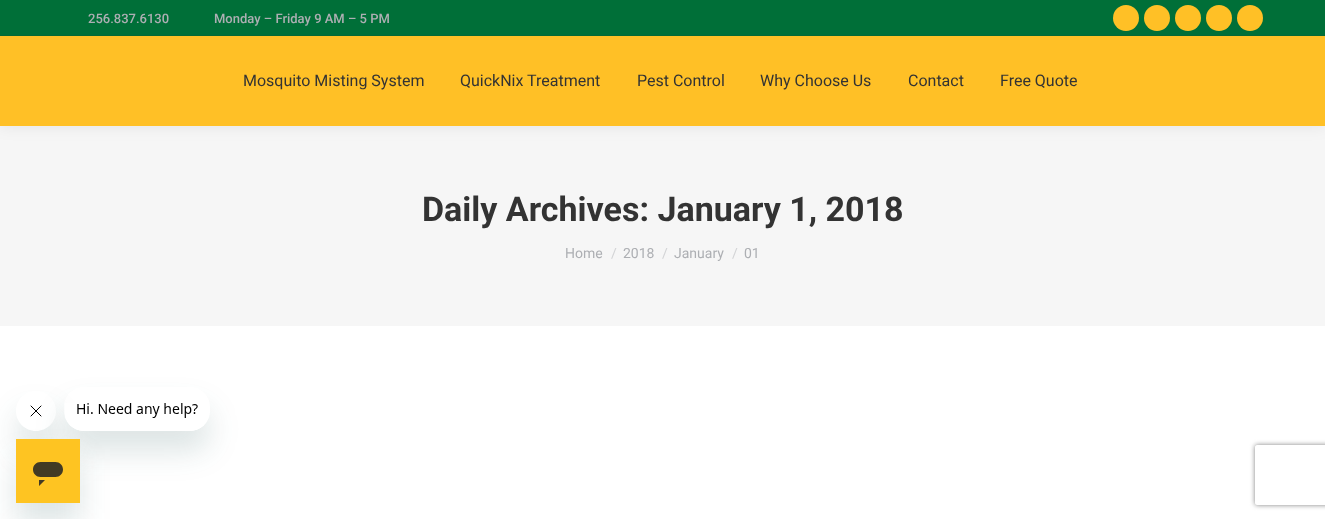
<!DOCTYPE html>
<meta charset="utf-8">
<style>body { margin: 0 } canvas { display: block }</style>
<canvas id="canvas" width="1325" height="519"></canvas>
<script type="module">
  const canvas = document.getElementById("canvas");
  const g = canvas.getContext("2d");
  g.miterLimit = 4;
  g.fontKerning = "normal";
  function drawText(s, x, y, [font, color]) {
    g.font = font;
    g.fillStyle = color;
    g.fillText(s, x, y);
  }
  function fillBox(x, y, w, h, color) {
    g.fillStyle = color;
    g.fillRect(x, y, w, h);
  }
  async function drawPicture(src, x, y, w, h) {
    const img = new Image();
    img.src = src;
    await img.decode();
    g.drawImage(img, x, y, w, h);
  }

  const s1 = ["500 13px Roboto", "#ADAFB3"];
  const s2 = ["16px Roboto", "#333333"];
  const s3 = ["bold 34px Roboto", "#333333"];
  const s4 = ["14px Roboto", "#ADAFB3"];
  const s5 = ["14px Roboto", "#D2D3D5"];

  fillBox(0, 0, 1325, 519, "#FFFFFF");
  fillBox(0, 126, 1325, 200, "#F6F6F6");
  g.fillStyle = "rgba(0, 0, 0, 0.07)";
  g.filter = "blur(7.5px)";
  g.beginPath();
  g.rect(-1, -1, 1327, 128);
  g.fill();
  g.filter = "none";
  fillBox(0, 36, 1325, 90, "#FFC026");
  fillBox(0, 0, 1325, 35, "#006F38");
  drawText("256.837.6130", 88, 23, s1);
  drawText("Monday – Friday 9 AM – 5 PM", 214, 23, s1);
  g.fillStyle = "#FFC026";
  g.beginPath();
  g.arc(1126, 18, 13, 0, Math.PI * 2);
  g.fill();
  g.beginPath();
  g.arc(1157, 18, 13, 0, Math.PI * 2);
  g.fill();
  g.beginPath();
  g.arc(1188, 18, 13, 0, Math.PI * 2);
  g.fill();
  g.beginPath();
  g.arc(1219, 18, 13, 0, Math.PI * 2);
  g.fill();
  g.beginPath();
  g.arc(1250, 18, 13, 0, Math.PI * 2);
  g.fill();
  fillBox(0, 35, 1325, 1, "#066837");
  drawText("Mosquito Misting System", 243, 86, s2);
  drawText("QuickNix Treatment", 460, 86, s2);
  drawText("Pest Control", 637, 86, s2);
  drawText("Why Choose Us", 760, 86, s2);
  drawText("Contact", 908, 86, s2);
  drawText("Free Quote", 1000, 86, s2);
  drawText("Daily Archives: January 1, 2018", 422, 221, s3);
  drawText("Home", 565, 258, s4);
  drawText("/", 611, 258, s5);
  drawText("2018", 623, 258, s4);
  drawText("/", 662, 258, s5);
  drawText("January", 674, 258, s4);
  drawText("/", 732, 258, s5);
  drawText("01", 744, 258, s4);
  g.save();
  g.beginPath();
  g.moveTo(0, 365);
  g.lineTo(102, 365);
  g.lineTo(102, 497);
  g.lineTo(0, 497);
  g.closePath();
  g.moveTo(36, 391);
  g.bezierCurveTo(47, 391, 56, 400, 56, 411);
  g.bezierCurveTo(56, 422, 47, 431, 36, 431);
  g.bezierCurveTo(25, 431, 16, 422, 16, 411);
  g.bezierCurveTo(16, 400, 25, 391, 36, 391);
  g.closePath();
  g.clip("evenodd");
  g.fillStyle = "rgba(23, 73, 77, 0.15)";
  g.filter = "blur(15px)";
  g.beginPath();
  g.roundRect(16, 411, 40, 40, 20);
  g.fill();
  g.filter = "none";
  g.restore();
  await drawPicture("pic2.png", 30, 405, 12, 12);
  g.save();
  g.beginPath();
  g.moveTo(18, 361);
  g.lineTo(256, 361);
  g.lineTo(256, 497);
  g.lineTo(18, 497);
  g.closePath();
  g.moveTo(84, 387);
  g.lineTo(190, 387);
  g.bezierCurveTo(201, 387, 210, 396, 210, 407);
  g.lineTo(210, 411);
  g.bezierCurveTo(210, 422, 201, 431, 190, 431);
  g.lineTo(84, 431);
  g.bezierCurveTo(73, 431, 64, 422, 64, 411);
  g.lineTo(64, 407);
  g.bezierCurveTo(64, 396, 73, 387, 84, 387);
  g.closePath();
  g.clip("evenodd");
  g.fillStyle = "rgba(23, 73, 77, 0.15)";
  g.filter = "blur(15px)";
  g.beginPath();
  g.roundRect(64, 407, 146, 44, 20);
  g.fill();
  g.filter = "none";
  g.restore();
  await drawPicture("pic1.png", 65, 403, 139, 28);
  g.fillStyle = "rgba(23, 73, 77, 0.15)";
  g.filter = "blur(15px)";
  g.beginPath();
  g.rect(16, 459, 64, 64);
  g.fill();
  g.filter = "none";
  await drawPicture("pic3.png", 16, 439, 64, 64);
  g.save();
  g.beginPath();
  g.moveTo(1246, 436);
  g.lineTo(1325, 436);
  g.lineTo(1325, 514);
  g.lineTo(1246, 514);
  g.closePath();
  g.moveTo(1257, 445);
  g.lineTo(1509, 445);
  g.bezierCurveTo(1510, 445, 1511, 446, 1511, 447);
  g.lineTo(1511, 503);
  g.bezierCurveTo(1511, 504, 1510, 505, 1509, 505);
  g.lineTo(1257, 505);
  g.bezierCurveTo(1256, 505, 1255, 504, 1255, 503);
  g.lineTo(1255, 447);
  g.bezierCurveTo(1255, 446, 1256, 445, 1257, 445);
  g.closePath();
  g.clip("evenodd");
  g.fillStyle = "#808080";
  g.filter = "blur(2.5px)";
  g.beginPath();
  g.roundRect(1255, 445, 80, 60, 2);
  g.fill();
  g.filter = "none";
  g.restore();
</script>
